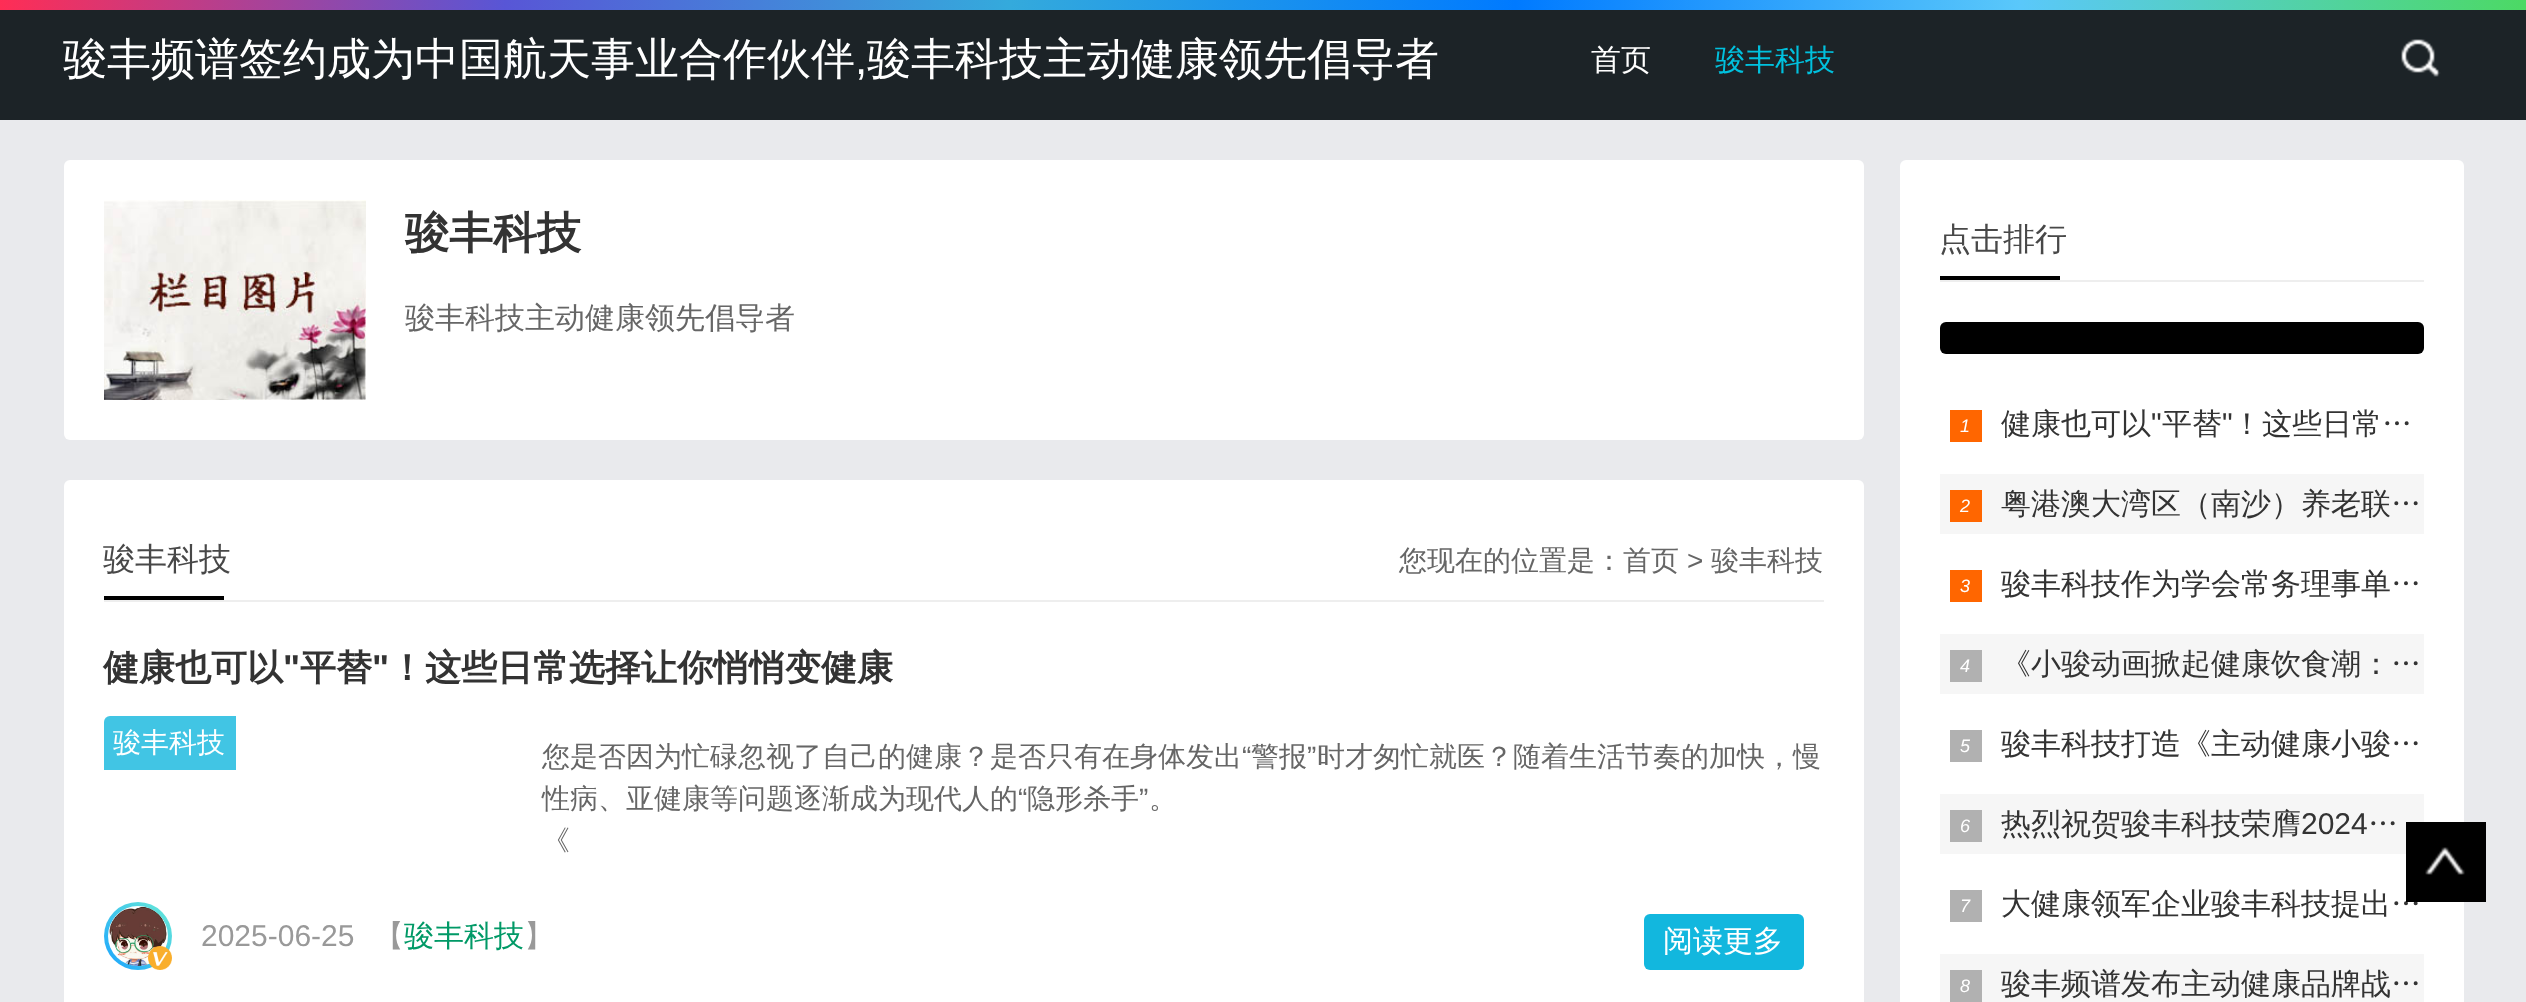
<!DOCTYPE html>
<meta charset="utf-8">
<style>body { margin: 0 } canvas { display: block }</style>
<canvas id="canvas" width="2526" height="1002"></canvas>
<script type="module">
  const canvas = document.getElementById("canvas");
  const g = canvas.getContext("2d");
  g.miterLimit = 4;
  g.fontKerning = "normal";
  function drawText(s, x, y, [font, color]) {
    g.font = font;
    g.fillStyle = color;
    g.fillText(s, x, y);
  }
  function fillBox(x, y, w, h, color) {
    g.fillStyle = color;
    g.fillRect(x, y, w, h);
  }
  function fillRounded(x, y, w, h, r, color) {
    g.fillStyle = color;
    g.beginPath();
    g.roundRect(x, y, w, h, r);
    g.fill();
  }
  async function drawPicture(src, x, y, w, h) {
    const img = new Image();
    img.src = src;
    await img.decode();
    g.drawImage(img, x, y, w, h);
  }
  let gradient;

  const s1 = ["500 44px WenQuanYi Zen Hei", "#FFFFFF"];
  const s2 = ["44px Liberation Sans", "#FFFFFF"];
  const s3 = ["500 30px WenQuanYi Zen Hei", "#FFFFFF"];
  const s4 = ["500 30px WenQuanYi Zen Hei", "#00C1DE"];
  const s5 = ["bold 44px WenQuanYi Zen Hei", "#333333"];
  const s6 = ["500 30px WenQuanYi Zen Hei", "#666666"];
  const s7 = ["500 32px WenQuanYi Zen Hei", "#484848"];
  const s8 = ["500 28px WenQuanYi Zen Hei", "#666666"];
  const s9 = ["28px Liberation Sans", "#666666"];
  const s10 = ["bold 36px WenQuanYi Zen Hei", "#333333"];
  const s11 = ["bold 36px Liberation Sans", "#333333"];
  const s12 = ["500 28px WenQuanYi Zen Hei", "#FFFFFF"];
  const s13 = ["30px Liberation Sans", "#999999"];
  const s14 = ["500 30px WenQuanYi Zen Hei", "#999999"];
  const s15 = ["500 30px WenQuanYi Zen Hei", "#009966"];
  const s16 = ["500 30px WenQuanYi Zen Hei", "#333333"];
  const s17 = ["30px Liberation Sans", "#333333"];
  const s18 = ["italic 18px Liberation Sans", "#FFFFFF"];

  fillBox(0, 0, 2526, 1002, "#E9EAED");
  fillBox(0, 10, 2526, 110, "#1C2327");
  gradient = g.createLinearGradient(2526, 5, 0, 5);
  gradient.addColorStop(0, "#4CD964");
  gradient.addColorStop(0.2, "#5AC8FA");
  gradient.addColorStop(0.4, "#007AFF");
  gradient.addColorStop(0.6, "#34AADC");
  gradient.addColorStop(0.8, "#5856D6");
  gradient.addColorStop(1, "#FF2D55");
  g.fillStyle = gradient;
  g.fillRect(0, 0, 2526, 10);
  drawText("骏丰频谱签约成为中国航天事业合作伙伴", 63, 74, s1);
  drawText(",", 855, 74, s2);
  drawText("骏丰科技主动健康领先倡导者", 867, 74, s1);
  drawText("首页", 1591, 70, s3);
  drawText("骏丰科技", 1715, 70, s4);
  await drawPicture("pic1.png", 2401, 39, 40, 38);
  fillRounded(64, 160, 1800, 280, 6, "#FFFFFF");
  await drawPicture("pic2.png", 104, 200, 262, 200);
  drawText("骏丰科技", 405, 248, s5);
  drawText("骏丰科技主动健康领先倡导者", 405, 328, s6);
  fillRounded(64, 480, 1800, 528, 6, "#FFFFFF");
  fillBox(104, 600, 1720, 2, "#EEEEEE");
  drawText("骏丰科技", 103, 570, s7);
  drawText("您现在的位置是：首页", 1399, 570, s8);
  drawText(">", 1687, 570, s9);
  drawText("骏丰科技", 1711, 570, s8);
  fillBox(104, 596, 120, 4, "#000000");
  drawText("健康也可以", 103, 680, s10);
  drawText("\"", 283, 680, s11);
  drawText("平替", 300, 680, s10);
  drawText("\"", 372, 680, s11);
  drawText("！这些日常选择让你悄悄变健康", 389, 680, s10);
  g.fillStyle = "#41C5E4";
  g.beginPath();
  g.roundRect(104, 716, 132, 54, [6, 0, 0, 0]);
  g.fill();
  drawText("骏丰科技", 113, 752, s12);
  drawText("您是否因为忙碌忽视了自己的健康？是否只有在身体发出", 542, 766, s8);
  drawText("“", 1242, 766, s9);
  drawText("警报", 1251, 766, s8);
  drawText("”", 1307, 766, s9);
  drawText("时才匆忙就医？随着生活节奏的加快，慢", 1317, 766, s8);
  drawText("性病、亚健康等问题逐渐成为现代人的", 542, 808, s8);
  drawText("“", 1018, 808, s9);
  drawText("隐形杀手", 1027, 808, s8);
  drawText("”", 1139, 808, s9);
  drawText("。", 1149, 808, s8);
  drawText("《", 542, 850, s8);
  gradient = g.createLinearGradient(104, 970, 172, 902);
  gradient.addColorStop(0, "#1AA3FF");
  gradient.addColorStop(1, "#6AECD6");
  g.fillStyle = gradient;
  g.beginPath();
  g.arc(138, 936, 34, 0, Math.PI * 2);
  g.fill();
  await drawPicture("pic3.png", 108, 906, 60, 60);
  await drawPicture("pic4.png", 148, 946, 24, 24);
  drawText("2025-06-25", 201, 946, s13);
  drawText("【", 374, 946, s14);
  drawText("骏丰科技", 404, 946, s15);
  drawText("】", 524, 946, s14);
  fillRounded(1644, 914, 160, 56, 6, "#12B7DE");
  drawText("阅读更多", 1663, 951, s3);
  fillRounded(1900, 160, 564, 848, 6, "#FFFFFF");
  fillBox(1940, 280, 484, 2, "#EEEEEE");
  drawText("点击排行", 1939, 250, s7);
  fillBox(1940, 276, 120, 4, "#000000");
  fillRounded(1940, 322, 484, 32, 6, "#000000");
  drawText("健康也可以", 2001, 434, s16);
  drawText("\"", 2151, 434, s17);
  drawText("平替", 2162, 434, s16);
  drawText("\"", 2222, 434, s17);
  drawText("！这些日常…", 2232, 434, s16);
  fillBox(1950, 410, 32, 32, "#FF6600");
  drawText("1", 1960, 432, s18);
  fillBox(1940, 474, 484, 60, "#F6F6F6");
  fillBox(1950, 490, 32, 32, "#FF6600");
  drawText("2", 1960, 512, s18);
  drawText("粤港澳大湾区（南沙）养老联…", 2001, 514, s16);
  fillBox(1950, 570, 32, 32, "#FF6600");
  drawText("3", 1960, 592, s18);
  drawText("骏丰科技作为学会常务理事单…", 2001, 594, s16);
  fillBox(1940, 634, 484, 60, "#F6F6F6");
  fillBox(1950, 650, 32, 32, "#B1B1B1");
  drawText("4", 1960, 672, s18);
  drawText("《小骏动画掀起健康饮食潮：…", 2001, 674, s16);
  fillBox(1950, 730, 32, 32, "#B1B1B1");
  drawText("5", 1960, 752, s18);
  drawText("骏丰科技打造《主动健康小骏…", 2001, 754, s16);
  fillBox(1940, 794, 484, 60, "#F6F6F6");
  fillBox(1950, 810, 32, 32, "#B1B1B1");
  drawText("6", 1960, 832, s18);
  drawText("热烈祝贺骏丰科技荣膺", 2001, 834, s16);
  drawText("2024", 2301, 834, s17);
  drawText("…", 2368, 834, s16);
  fillBox(1950, 890, 32, 32, "#B1B1B1");
  drawText("7", 1960, 912, s18);
  drawText("大健康领军企业骏丰科技提出…", 2001, 914, s16);
  fillBox(1940, 954, 484, 48, "#F6F6F6");
  fillBox(1950, 970, 32, 32, "#B1B1B1");
  drawText("8", 1960, 992, s18);
  drawText("骏丰频谱发布主动健康品牌战…", 2001, 994, s16);
  fillBox(2406, 822, 80, 80, "#000000");
  await drawPicture("pic5.png", 2425, 847, 40, 28);
</script>
